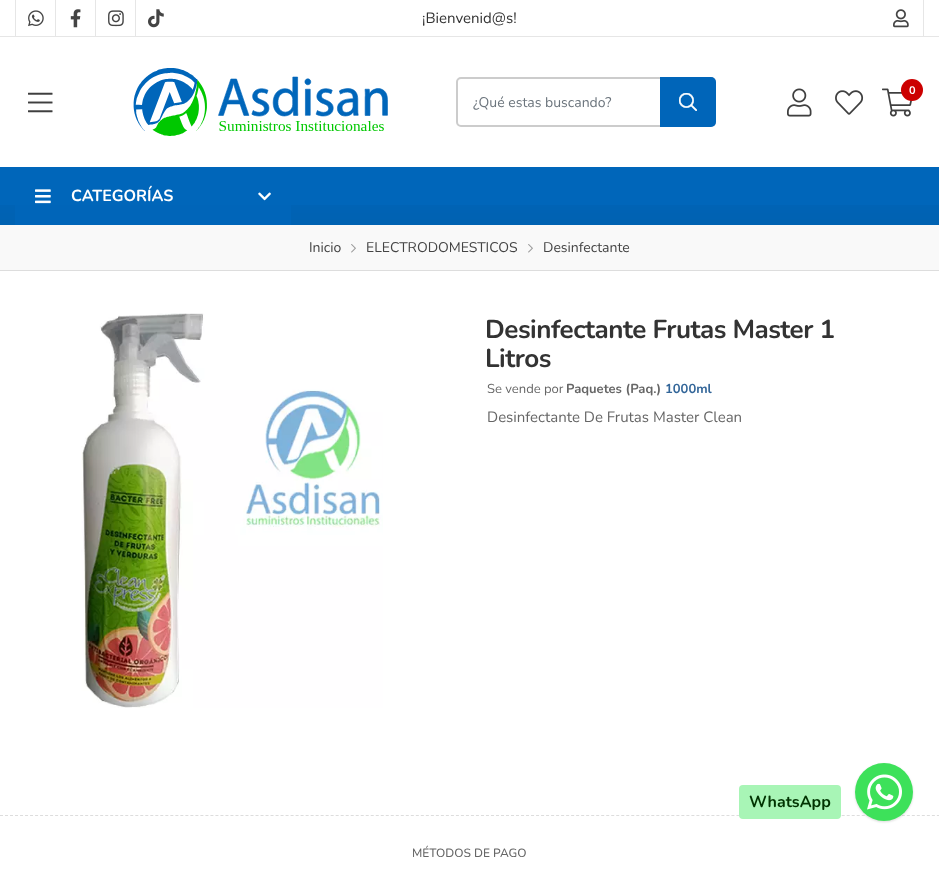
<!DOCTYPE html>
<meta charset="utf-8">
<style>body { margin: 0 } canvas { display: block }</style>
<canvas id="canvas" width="939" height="871"></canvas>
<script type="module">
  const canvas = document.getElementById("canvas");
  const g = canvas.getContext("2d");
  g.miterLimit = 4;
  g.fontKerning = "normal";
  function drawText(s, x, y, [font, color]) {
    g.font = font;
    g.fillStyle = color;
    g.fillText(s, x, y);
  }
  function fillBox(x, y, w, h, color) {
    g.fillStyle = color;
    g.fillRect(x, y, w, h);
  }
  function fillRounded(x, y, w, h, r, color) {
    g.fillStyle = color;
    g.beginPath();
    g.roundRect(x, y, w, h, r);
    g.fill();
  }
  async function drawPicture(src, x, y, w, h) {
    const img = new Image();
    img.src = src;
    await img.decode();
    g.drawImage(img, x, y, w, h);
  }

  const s1 = ["15px Nunito", "#333333"];
  const s2 = ["bold 11px Nunito", "#FFFFFF"];
  const s3 = ["14px Nunito", "#6C757D"];
  const s4 = ["bold 16px Nunito", "#FFFFFF"];
  const s5 = ["14px Nunito", "#444444"];
  const s6 = ["bold 26px Nunito", "#333333"];
  const s7 = ["13px Nunito", "#666666"];
  const s8 = ["bold 13px Nunito", "#666666"];
  const s9 = ["bold 13px Nunito", "#336699"];
  const s10 = ["15px Nunito", "#666666"];
  const s11 = ["bold 16px Nunito", "#003300"];
  const s12 = ["500 12px Nunito", "#666666"];

  fillBox(0, 0, 939, 871, "#FFFFFF");
  fillBox(0, 36, 939, 1, "#E6E6E6");
  fillBox(15, 0, 1, 36, "#E6E6E6");
  await drawPicture("pic1.png", 28, 10, 16, 17);
  fillBox(55, 0, 1, 36, "#E6E6E6");
  await drawPicture("pic2.png", 70, 9, 11, 19);
  fillBox(95, 0, 1, 36, "#E6E6E6");
  await drawPicture("pic3.png", 108, 10, 16, 17);
  fillBox(135, 0, 1, 36, "#E6E6E6");
  await drawPicture("pic4.png", 148, 9, 16, 19);
  drawText("¡Bienvenid@s!", 422, 23, s1);
  fillBox(923, 0, 1, 36, "#E6E6E6");
  await drawPicture("pic5.png", 893, 9, 16, 19);
  await drawPicture("pic6.png", 133, 68, 255, 68);
  await drawPicture("pic7.png", 787, 88, 25, 29);
  await drawPicture("pic8.png", 835, 90, 29, 25);
  await drawPicture("pic9.png", 882, 88, 31, 29);
  g.fillStyle = "#CC0000";
  g.beginPath();
  g.arc(912, 90, 11, 0, Math.PI * 2);
  g.fill();
  drawText("0", 909, 94, s2);
  await drawPicture("pic10.png", 28, 92, 25, 21);
  g.beginPath();
  g.roundRect(457, 78, 258, 48, 4);
  g.strokeStyle = "#CCCCCC";
  g.lineWidth = 2;
  g.stroke();
  drawText("¿Qué estas buscando?", 473, 107, s3);
  g.fillStyle = "#0065B9";
  g.beginPath();
  g.roundRect(660, 77, 56, 50, [0, 5, 5, 0]);
  g.fill();
  await drawPicture("pic11.png", 679, 93, 18, 18);
  fillBox(0, 167, 939, 58, "#0066BA");
  await drawPicture("pic12.png", 0, 205, 939, 20);
  fillBox(15, 205, 276, 20, "#0065B9");
  await drawPicture("pic13.png", 35, 189, 16, 15);
  drawText("CATEGORÍAS", 71, 201, s4);
  await drawPicture("pic14.png", 258, 192, 13, 9);
  fillBox(0, 225, 939, 45, "#F9F9F9");
  fillBox(0, 270, 939, 1, "#DDDDDD");
  drawText("Inicio", 309, 252, s5);
  await drawPicture("pic15.png", 351, 244, 5, 9);
  drawText("ELECTRODOMESTICOS", 366, 252, s5);
  await drawPicture("pic15.png", 528, 244, 5, 9);
  drawText("Desinfectante", 543, 252, s5);
  await drawPicture("pic16.png", 81, 313, 302, 395);
  g.letterSpacing = "-0.5px";
  drawText("Desinfectante Frutas Master 1", 485, 338, s6);
  drawText("Litros", 485, 367, s6);
  g.letterSpacing = "0px";
  drawText("Se vende por", 487, 393, s7);
  drawText("Paquetes (Paq.)", 566, 393, s8);
  drawText("1000ml", 665, 393, s9);
  drawText("Desinfectante De Frutas Master Clean", 487, 422, s10);
  g.beginPath();
  g.moveTo(0, 815.5);
  g.lineTo(939, 815.5);
  g.strokeStyle = "#DDDDDD";
  g.lineWidth = 1;
  g.setLineDash([3, 2.01]);
  g.stroke();
  fillRounded(739, 785, 102, 34, 4, "#A8F5B6");
  drawText("WhatsApp", 749, 807, s11);
  g.fillStyle = "rgba(0, 0, 0, 0.15)";
  g.filter = "blur(1px)";
  g.beginPath();
  g.roundRect(855, 764, 58, 58, 29);
  g.fill();
  g.filter = "none";
  g.fillStyle = "#3DE15A";
  g.beginPath();
  g.arc(884, 792, 29, 0, Math.PI * 2);
  g.fill();
  await drawPicture("pic17.png", 867, 774, 35, 36);
  drawText("MÉTODOS DE PAGO", 412, 857, s12);
</script>
